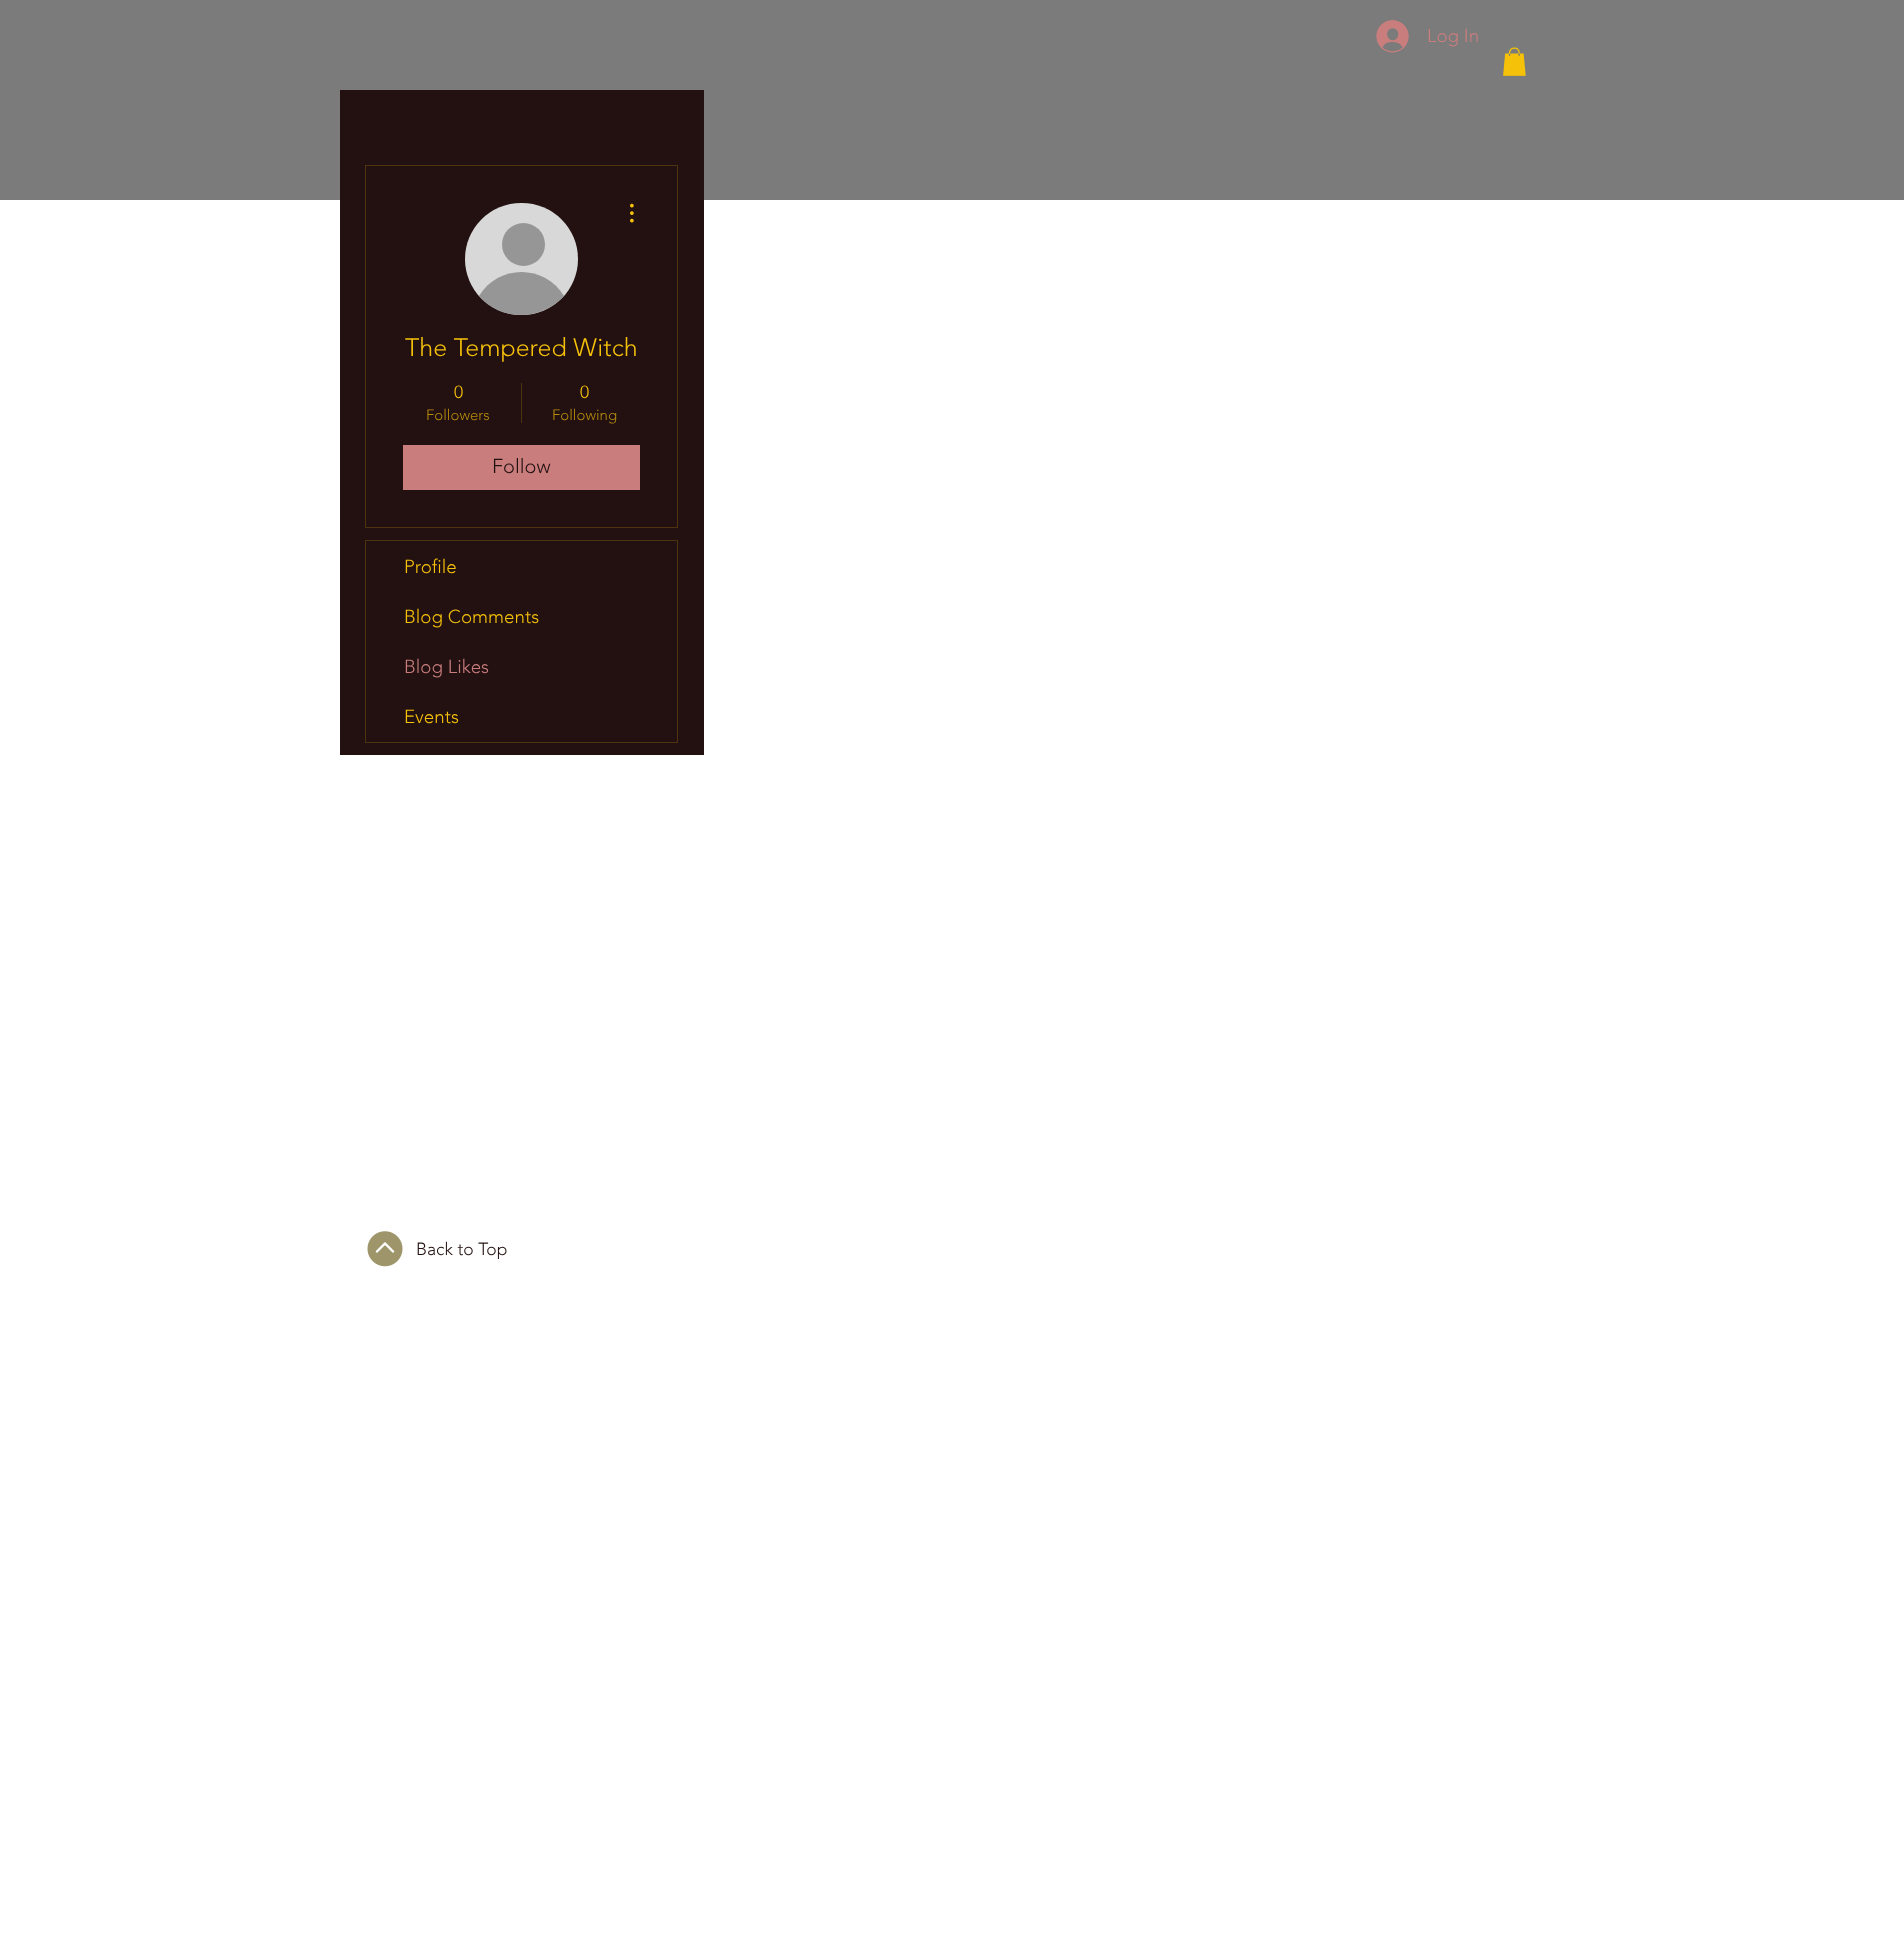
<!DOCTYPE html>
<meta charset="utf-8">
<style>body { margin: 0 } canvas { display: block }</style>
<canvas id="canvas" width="1904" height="1947"></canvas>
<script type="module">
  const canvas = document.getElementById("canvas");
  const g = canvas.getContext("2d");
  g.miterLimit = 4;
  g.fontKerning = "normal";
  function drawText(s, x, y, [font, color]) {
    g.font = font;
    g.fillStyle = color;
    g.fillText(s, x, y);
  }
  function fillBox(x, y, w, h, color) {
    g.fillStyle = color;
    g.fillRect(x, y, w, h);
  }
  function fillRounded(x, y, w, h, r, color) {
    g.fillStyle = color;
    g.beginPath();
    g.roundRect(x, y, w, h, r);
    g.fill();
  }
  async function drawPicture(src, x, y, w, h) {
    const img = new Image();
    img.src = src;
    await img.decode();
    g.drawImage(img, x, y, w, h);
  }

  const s1 = ["300 18.75px 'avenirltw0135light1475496'", "#C97D7D"];
  const s2 = ["300 25px 'avenirltw0135light1475496'", "#F5C109"];
  const s3 = ["300 17.5px 'avenirltw0135light1475496'", "#F5C109"];
  const s4 = ["300 15px 'avenirltw0135light1475496'", "#B68C0B"];
  const s5 = ["300 20px 'avenirltw0135light1475496'", "#231111"];
  const s6 = ["300 18.75px 'avenirltw0135light1475496'", "#F5C109"];
  const s7 = ["300 17.5px 'avenirltw0135light1475496'", "#231111"];

  fillBox(0, 0, 1904, 1947, "#FFFFFF");
  fillBox(0, 0, 1904, 200, "#7B7B7B");
  await drawPicture("pic1.png", 1376, 20, 33, 33);
  drawText("Log In", 1427, 42, s1);
  await drawPicture("pic2.png", 1503, 47, 23, 29);
  fillBox(340, 90, 364, 665, "#231111");
  g.strokeStyle = "#4D340F";
  g.strokeRect(365.5, 165.5, 312, 362);
  fillRounded(465, 203, 113, 112, 56, "#D8D8D8");
  g.fillStyle = "#969696";
  g.beginPath();
  g.arc(523.5, 244.5, 21.5, 0, Math.PI * 2);
  g.fill();
  g.beginPath();
  g.moveTo(521, 315);
  g.bezierCurveTo(537, 315, 553, 308, 564, 296);
  g.bezierCurveTo(545, 264, 498, 264, 479, 296);
  g.bezierCurveTo(489, 308, 504, 315, 521, 315);
  g.closePath();
  g.fill();
  await drawPicture("pic3.png", 630, 203, 4, 20);
  drawText("The Tempered Witch", 405, 356, s2);
  drawText("0", 454, 398, s3);
  drawText("Followers", 426, 420, s4);
  fillBox(521, 383, 1, 40, "#4D340F");
  drawText("0", 580, 398, s3);
  drawText("Following", 552, 420, s4);
  fillBox(403, 445, 237, 45, "#C97D7D");
  drawText("Follow", 492, 473, s5);
  g.strokeRect(365.5, 540.5, 312, 202);
  drawText("Profile", 404, 573, s6);
  drawText("Blog Comments", 404, 623, s6);
  drawText("Blog Likes", 404, 673, s1);
  drawText("Events", 404, 723, s6);
  await drawPicture("pic4.png", 367, 1231, 36, 36);
  drawText("Back to Top", 416, 1255, s7);
</script>
